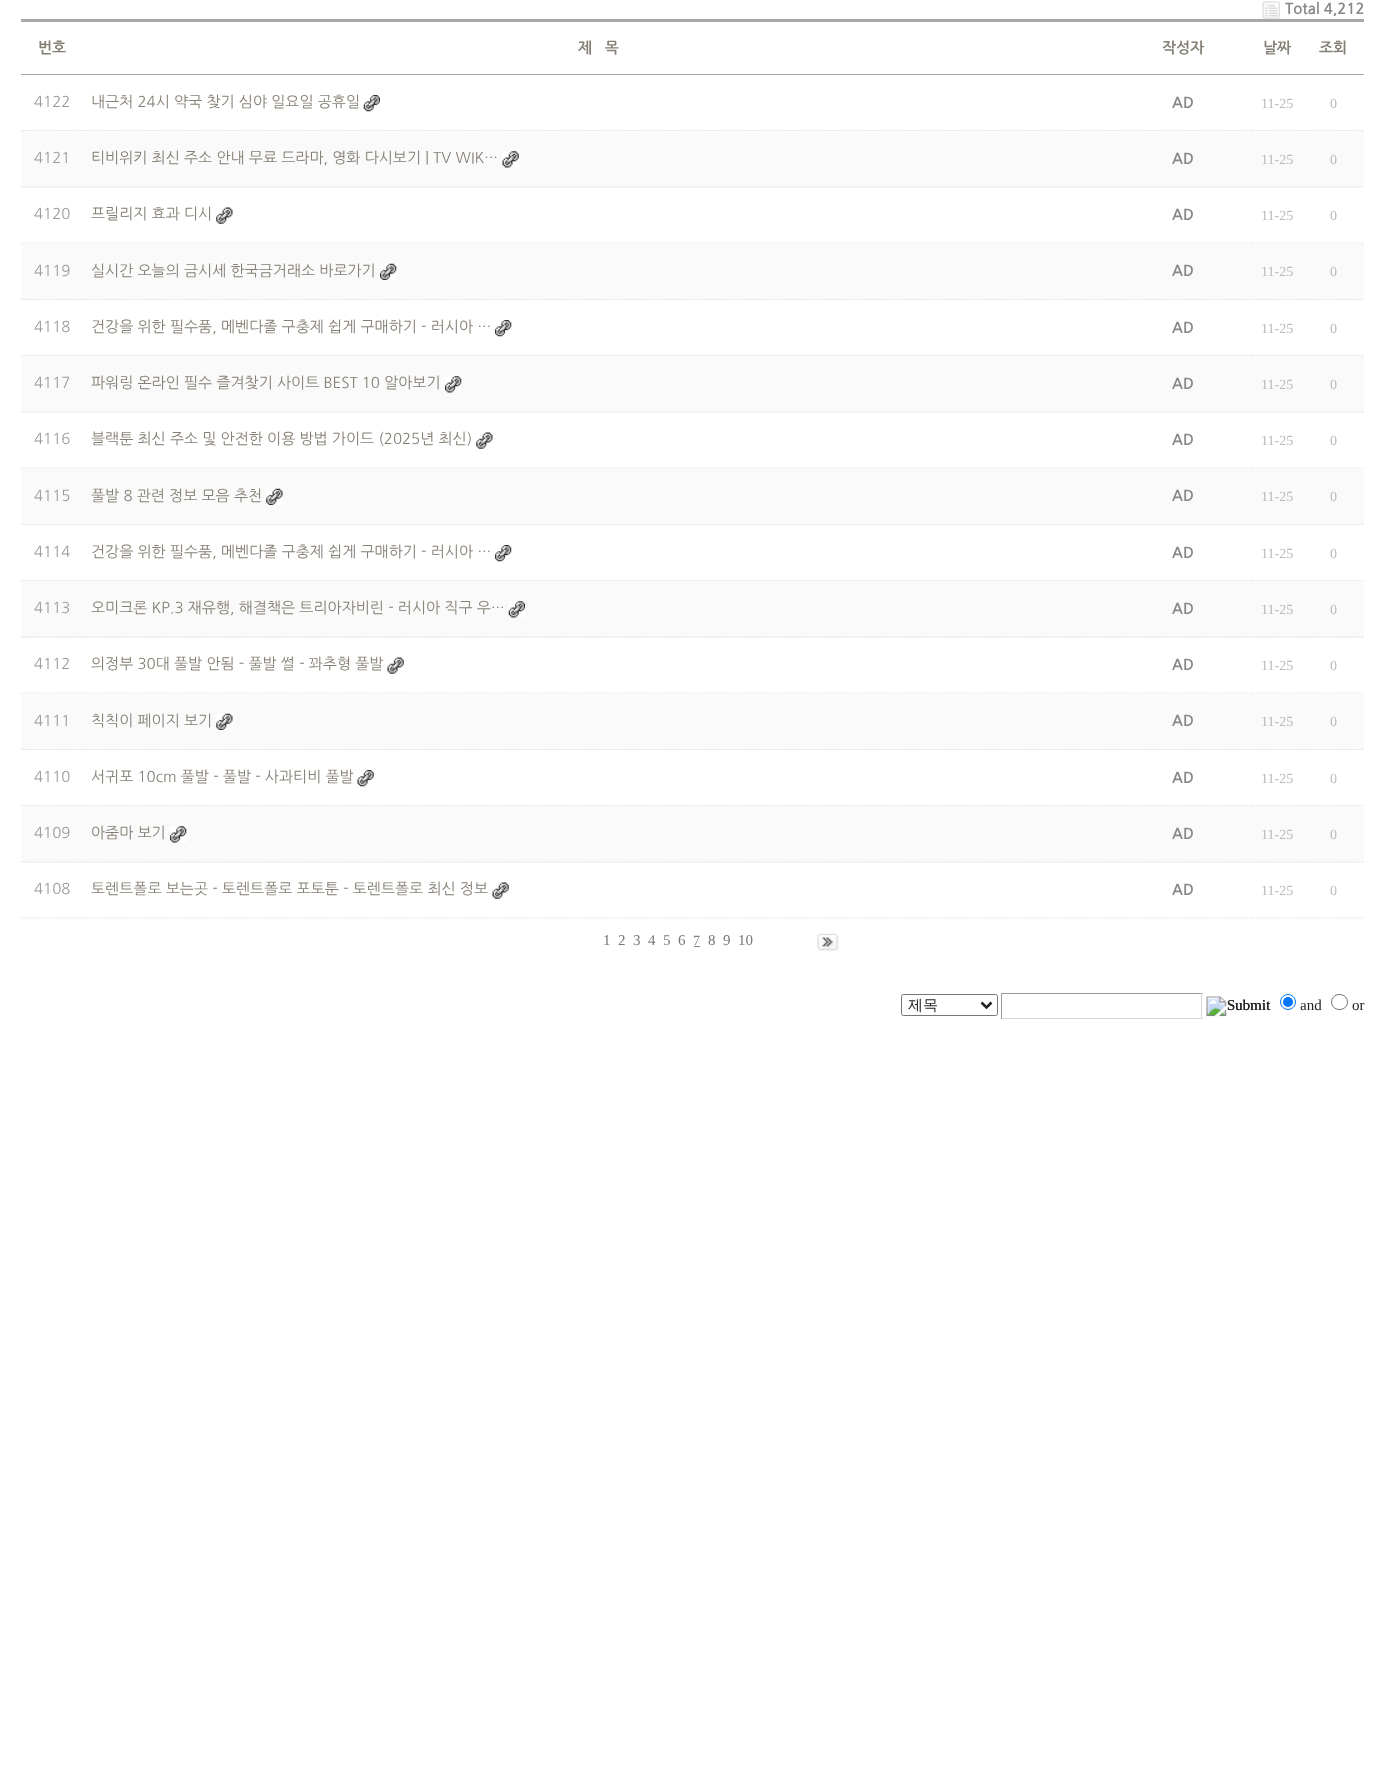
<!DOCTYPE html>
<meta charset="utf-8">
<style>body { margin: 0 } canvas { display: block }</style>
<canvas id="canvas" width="1385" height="1778"></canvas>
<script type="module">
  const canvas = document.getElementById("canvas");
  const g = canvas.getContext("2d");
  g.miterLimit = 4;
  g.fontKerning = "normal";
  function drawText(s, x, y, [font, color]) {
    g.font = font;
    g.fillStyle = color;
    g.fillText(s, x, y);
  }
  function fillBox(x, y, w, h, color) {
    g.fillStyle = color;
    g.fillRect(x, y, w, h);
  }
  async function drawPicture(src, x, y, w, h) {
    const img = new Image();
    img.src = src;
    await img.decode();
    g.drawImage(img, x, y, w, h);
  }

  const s1 = ["bold 15px NanumGothic", "#888888"];
  const s2 = ["bold 15px NanumGothic", "#847F74"];
  const s3 = ["15px NanumGothic", "#999999"];
  const s4 = ["15px NanumGothic", "#847F74"];
  const s5 = ["14px Liberation Serif", "#BABABA"];
  const s6 = ["15px Liberation Serif", "#777777"];
  const s7 = ["14px Liberation Serif", "#847F74"];
  const s8 = ["500 15px WenQuanYi Zen Hei", "#222222"];
  const s9 = ["15px Liberation Serif", "#222222"];

  fillBox(0, 0, 1385, 1778, "#FFFFFF");
  await drawPicture("pic1.png", 1262, 1, 18, 18);
  drawText("Total 4,212", 1285, 14, s1);
  fillBox(21, 19, 1343, 3, "#A9A9A9");
  fillBox(21, 74, 1343, 1, "#A9A9A9");
  drawText("번호", 38, 53, s2);
  drawText("제   목", 578, 53, s2);
  drawText("작성자", 1162, 53, s2);
  drawText("날짜", 1263, 53, s2);
  drawText("조회", 1319, 53, s2);
  g.beginPath();
  g.moveTo(21, 130.5);
  g.lineTo(84, 130.5);
  g.strokeStyle = "#DDDDDD";
  g.lineWidth = 1.2;
  g.setLineDash([1.25, 1.25]);
  g.stroke();
  drawText("4122", 34, 107, s3);
  g.beginPath();
  g.moveTo(1114, 130.5);
  g.lineTo(1251, 130.5);
  g.stroke();
  g.beginPath();
  g.moveTo(1251, 130.5);
  g.lineTo(1301, 130.5);
  g.stroke();
  g.beginPath();
  g.moveTo(1301, 130.5);
  g.lineTo(1364, 130.5);
  g.stroke();
  fillBox(21, 131, 1343, 57, "#FAFAFA");
  g.beginPath();
  g.moveTo(84, 130.5);
  g.lineTo(1114, 130.5);
  g.stroke();
  drawText("내근처 24시 약국 찾기 심야 일요일 공휴일", 91, 107, s4);
  await drawPicture("pic2.png", 363, 95, 17, 17);
  drawText("AD", 1172, 108, s1);
  drawText("11-25", 1261, 108, s5);
  drawText("0", 1330, 108, s5);
  g.beginPath();
  g.moveTo(21, 187);
  g.lineTo(84, 187);
  g.stroke();
  drawText("4121", 34, 163, s3);
  g.beginPath();
  g.moveTo(84, 187);
  g.lineTo(1114, 187);
  g.stroke();
  drawText("티비위키 최신 주소 안내 무료 드라마, 영화 다시보기 | TV WIK…", 91, 163, s4);
  await drawPicture("pic3.png", 502, 151, 17, 17);
  g.beginPath();
  g.moveTo(1114, 187);
  g.lineTo(1251, 187);
  g.stroke();
  drawText("AD", 1172, 164, s1);
  g.beginPath();
  g.moveTo(1251, 187);
  g.lineTo(1301, 187);
  g.stroke();
  drawText("11-25", 1261, 164, s5);
  g.beginPath();
  g.moveTo(1301, 187);
  g.lineTo(1364, 187);
  g.stroke();
  drawText("0", 1330, 164, s5);
  g.beginPath();
  g.moveTo(21, 243);
  g.lineTo(84, 243);
  g.stroke();
  drawText("4120", 34, 219, s3);
  g.beginPath();
  g.moveTo(84, 243);
  g.lineTo(1114, 243);
  g.stroke();
  drawText("프릴리지 효과 디시", 91, 219, s4);
  await drawPicture("pic4.png", 216, 207, 17, 17);
  g.beginPath();
  g.moveTo(1114, 243);
  g.lineTo(1251, 243);
  g.stroke();
  drawText("AD", 1172, 220, s1);
  g.beginPath();
  g.moveTo(1251, 243);
  g.lineTo(1301, 243);
  g.stroke();
  drawText("11-25", 1261, 220, s5);
  g.beginPath();
  g.moveTo(1301, 243);
  g.lineTo(1364, 243);
  g.stroke();
  drawText("0", 1330, 220, s5);
  fillBox(21, 244, 1343, 56, "#FAFAFA");
  g.beginPath();
  g.moveTo(21, 299.5);
  g.lineTo(84, 299.5);
  g.stroke();
  drawText("4119", 34, 276, s3);
  g.beginPath();
  g.moveTo(1114, 299.5);
  g.lineTo(1251, 299.5);
  g.stroke();
  g.beginPath();
  g.moveTo(1251, 299.5);
  g.lineTo(1301, 299.5);
  g.stroke();
  g.beginPath();
  g.moveTo(1301, 299.5);
  g.lineTo(1364, 299.5);
  g.stroke();
  fillBox(21, 300, 1341, 1, "#FFFFFF");
  g.beginPath();
  g.moveTo(84, 299.5);
  g.lineTo(1114, 299.5);
  g.stroke();
  drawText("실시간 오늘의 금시세 한국금거래소 바로가기", 91, 276, s4);
  await drawPicture("pic5.png", 380, 263, 17, 17);
  drawText("AD", 1172, 276, s1);
  drawText("11-25", 1261, 276, s5);
  drawText("0", 1330, 276, s5);
  g.beginPath();
  g.moveTo(21, 355.5);
  g.lineTo(84, 355.5);
  g.stroke();
  drawText("4118", 34, 332, s3);
  g.beginPath();
  g.moveTo(1114, 355.5);
  g.lineTo(1251, 355.5);
  g.stroke();
  g.beginPath();
  g.moveTo(1251, 355.5);
  g.lineTo(1301, 355.5);
  g.stroke();
  g.beginPath();
  g.moveTo(1301, 355.5);
  g.lineTo(1364, 355.5);
  g.stroke();
  fillBox(21, 356, 1343, 57, "#FAFAFA");
  g.beginPath();
  g.moveTo(84, 355.5);
  g.lineTo(1114, 355.5);
  g.stroke();
  drawText("건강을 위한 필수품, 메벤다졸 구충제 쉽게 구매하기 - 러시아 …", 91, 332, s4);
  await drawPicture("pic6.png", 495, 320, 17, 17);
  drawText("AD", 1172, 333, s1);
  drawText("11-25", 1261, 333, s5);
  drawText("0", 1330, 333, s5);
  g.beginPath();
  g.moveTo(21, 412);
  g.lineTo(84, 412);
  g.stroke();
  drawText("4117", 34, 388, s3);
  g.beginPath();
  g.moveTo(84, 412);
  g.lineTo(1114, 412);
  g.stroke();
  drawText("파워링 온라인 필수 즐겨찾기 사이트 BEST 10 알아보기", 91, 388, s4);
  await drawPicture("pic7.png", 445, 376, 17, 17);
  g.beginPath();
  g.moveTo(1114, 412);
  g.lineTo(1251, 412);
  g.stroke();
  drawText("AD", 1172, 389, s1);
  g.beginPath();
  g.moveTo(1251, 412);
  g.lineTo(1301, 412);
  g.stroke();
  drawText("11-25", 1261, 389, s5);
  g.beginPath();
  g.moveTo(1301, 412);
  g.lineTo(1364, 412);
  g.stroke();
  drawText("0", 1330, 389, s5);
  g.beginPath();
  g.moveTo(21, 468);
  g.lineTo(84, 468);
  g.stroke();
  drawText("4116", 34, 444, s3);
  g.beginPath();
  g.moveTo(84, 468);
  g.lineTo(1114, 468);
  g.stroke();
  drawText("블랙툰 최신 주소 및 안전한 이용 방법 가이드 (2025년 최신)", 91, 444, s4);
  await drawPicture("pic4.png", 476, 432, 17, 17);
  g.beginPath();
  g.moveTo(1114, 468);
  g.lineTo(1251, 468);
  g.stroke();
  drawText("AD", 1172, 445, s1);
  g.beginPath();
  g.moveTo(1251, 468);
  g.lineTo(1301, 468);
  g.stroke();
  drawText("11-25", 1261, 445, s5);
  g.beginPath();
  g.moveTo(1301, 468);
  g.lineTo(1364, 468);
  g.stroke();
  drawText("0", 1330, 445, s5);
  fillBox(21, 469, 1343, 56, "#FAFAFA");
  g.beginPath();
  g.moveTo(21, 524.5);
  g.lineTo(84, 524.5);
  g.stroke();
  drawText("4115", 34, 501, s3);
  g.beginPath();
  g.moveTo(1114, 524.5);
  g.lineTo(1251, 524.5);
  g.stroke();
  g.beginPath();
  g.moveTo(1251, 524.5);
  g.lineTo(1301, 524.5);
  g.stroke();
  g.beginPath();
  g.moveTo(1301, 524.5);
  g.lineTo(1364, 524.5);
  g.stroke();
  fillBox(21, 525, 1341, 1, "#FFFFFF");
  g.beginPath();
  g.moveTo(84, 524.5);
  g.lineTo(1114, 524.5);
  g.stroke();
  drawText("풀발 8 관련 정보 모음 추천", 91, 501, s4);
  await drawPicture("pic8.png", 266, 488, 17, 17);
  drawText("AD", 1172, 501, s1);
  drawText("11-25", 1261, 501, s5);
  drawText("0", 1330, 501, s5);
  g.beginPath();
  g.moveTo(21, 580.5);
  g.lineTo(84, 580.5);
  g.stroke();
  drawText("4114", 34, 557, s3);
  g.beginPath();
  g.moveTo(1114, 580.5);
  g.lineTo(1251, 580.5);
  g.stroke();
  g.beginPath();
  g.moveTo(1251, 580.5);
  g.lineTo(1301, 580.5);
  g.stroke();
  g.beginPath();
  g.moveTo(1301, 580.5);
  g.lineTo(1364, 580.5);
  g.stroke();
  fillBox(21, 581, 1343, 57, "#FAFAFA");
  g.beginPath();
  g.moveTo(84, 580.5);
  g.lineTo(1114, 580.5);
  g.stroke();
  drawText("건강을 위한 필수품, 메벤다졸 구충제 쉽게 구매하기 - 러시아 …", 91, 557, s4);
  await drawPicture("pic6.png", 495, 545, 17, 17);
  drawText("AD", 1172, 558, s1);
  drawText("11-25", 1261, 558, s5);
  drawText("0", 1330, 558, s5);
  g.beginPath();
  g.moveTo(21, 637);
  g.lineTo(84, 637);
  g.stroke();
  drawText("4113", 34, 613, s3);
  g.beginPath();
  g.moveTo(84, 637);
  g.lineTo(1114, 637);
  g.stroke();
  drawText("오미크론 KP.3 재유행, 해결책은 트리아자비린 - 러시아 직구 우…", 91, 613, s4);
  await drawPicture("pic9.png", 508, 601, 17, 17);
  g.beginPath();
  g.moveTo(1114, 637);
  g.lineTo(1251, 637);
  g.stroke();
  drawText("AD", 1172, 614, s1);
  g.beginPath();
  g.moveTo(1251, 637);
  g.lineTo(1301, 637);
  g.stroke();
  drawText("11-25", 1261, 614, s5);
  g.beginPath();
  g.moveTo(1301, 637);
  g.lineTo(1364, 637);
  g.stroke();
  drawText("0", 1330, 614, s5);
  g.beginPath();
  g.moveTo(21, 693);
  g.lineTo(84, 693);
  g.stroke();
  drawText("4112", 34, 669, s3);
  g.beginPath();
  g.moveTo(84, 693);
  g.lineTo(1114, 693);
  g.stroke();
  drawText("의정부 30대 풀발 안됨 - 풀발 썰 - 꽈추형 풀발", 91, 669, s4);
  await drawPicture("pic10.png", 387, 657, 17, 17);
  g.beginPath();
  g.moveTo(1114, 693);
  g.lineTo(1251, 693);
  g.stroke();
  drawText("AD", 1172, 670, s1);
  g.beginPath();
  g.moveTo(1251, 693);
  g.lineTo(1301, 693);
  g.stroke();
  drawText("11-25", 1261, 670, s5);
  g.beginPath();
  g.moveTo(1301, 693);
  g.lineTo(1364, 693);
  g.stroke();
  drawText("0", 1330, 670, s5);
  fillBox(21, 694, 1343, 56, "#FAFAFA");
  g.beginPath();
  g.moveTo(21, 749.5);
  g.lineTo(84, 749.5);
  g.stroke();
  drawText("4111", 34, 726, s3);
  g.beginPath();
  g.moveTo(1114, 749.5);
  g.lineTo(1251, 749.5);
  g.stroke();
  g.beginPath();
  g.moveTo(1251, 749.5);
  g.lineTo(1301, 749.5);
  g.stroke();
  g.beginPath();
  g.moveTo(1301, 749.5);
  g.lineTo(1364, 749.5);
  g.stroke();
  fillBox(21, 750, 1341, 1, "#FFFFFF");
  g.beginPath();
  g.moveTo(84, 749.5);
  g.lineTo(1114, 749.5);
  g.stroke();
  drawText("칙칙이 페이지 보기", 91, 726, s4);
  await drawPicture("pic8.png", 216, 713, 17, 17);
  drawText("AD", 1172, 726, s1);
  drawText("11-25", 1261, 726, s5);
  drawText("0", 1330, 726, s5);
  g.beginPath();
  g.moveTo(21, 805.5);
  g.lineTo(84, 805.5);
  g.stroke();
  drawText("4110", 34, 782, s3);
  g.beginPath();
  g.moveTo(1114, 805.5);
  g.lineTo(1251, 805.5);
  g.stroke();
  g.beginPath();
  g.moveTo(1251, 805.5);
  g.lineTo(1301, 805.5);
  g.stroke();
  g.beginPath();
  g.moveTo(1301, 805.5);
  g.lineTo(1364, 805.5);
  g.stroke();
  fillBox(21, 806, 1343, 57, "#FAFAFA");
  g.beginPath();
  g.moveTo(84, 805.5);
  g.lineTo(1114, 805.5);
  g.stroke();
  drawText("서귀포 10cm 풀발 - 풀발 - 사과티비 풀발", 91, 782, s4);
  await drawPicture("pic11.png", 357, 770, 17, 17);
  drawText("AD", 1172, 783, s1);
  drawText("11-25", 1261, 783, s5);
  drawText("0", 1330, 783, s5);
  g.beginPath();
  g.moveTo(21, 862);
  g.lineTo(84, 862);
  g.stroke();
  drawText("4109", 34, 838, s3);
  g.beginPath();
  g.moveTo(84, 862);
  g.lineTo(1114, 862);
  g.stroke();
  drawText("아줌마 보기", 91, 838, s4);
  await drawPicture("pic12.png", 170, 826, 17, 17);
  g.beginPath();
  g.moveTo(1114, 862);
  g.lineTo(1251, 862);
  g.stroke();
  drawText("AD", 1172, 839, s1);
  g.beginPath();
  g.moveTo(1251, 862);
  g.lineTo(1301, 862);
  g.stroke();
  drawText("11-25", 1261, 839, s5);
  g.beginPath();
  g.moveTo(1301, 862);
  g.lineTo(1364, 862);
  g.stroke();
  drawText("0", 1330, 839, s5);
  g.beginPath();
  g.moveTo(21, 918);
  g.lineTo(84, 918);
  g.stroke();
  drawText("4108", 34, 894, s3);
  g.beginPath();
  g.moveTo(84, 918);
  g.lineTo(1114, 918);
  g.stroke();
  drawText("토렌트폴로 보는곳 - 토렌트폴로 포토툰 - 토렌트폴로 최신 정보", 91, 894, s4);
  await drawPicture("pic13.png", 492, 882, 17, 17);
  g.beginPath();
  g.moveTo(1114, 918);
  g.lineTo(1251, 918);
  g.stroke();
  drawText("AD", 1172, 895, s1);
  g.beginPath();
  g.moveTo(1251, 918);
  g.lineTo(1301, 918);
  g.stroke();
  drawText("11-25", 1261, 895, s5);
  g.beginPath();
  g.moveTo(1301, 918);
  g.lineTo(1364, 918);
  g.stroke();
  drawText("0", 1330, 895, s5);
  drawText("1", 603, 945, s6);
  drawText("2", 618, 945, s6);
  drawText("3", 633, 945, s6);
  drawText("4", 648, 945, s6);
  drawText("5", 663, 945, s6);
  drawText("6", 678, 945, s6);
  drawText("7", 693, 945, s7);
  fillBox(694, 946, 6, 1, "#847F74");
  drawText("8", 708, 945, s6);
  drawText("9", 723, 945, s6);
  drawText("10", 738, 945, s6);
  await drawPicture("pic14.png", 817, 933, 22, 18);
  g.beginPath();
  g.roundRect(901.5, 994.5, 96, 21, 2);
  g.strokeStyle = "#767676";
  g.lineWidth = 1;
  g.setLineDash([]);
  g.stroke();
  g.beginPath();
  g.moveTo(981.5, 1002.5);
  g.lineTo(986.5, 1007.5);
  g.lineTo(991.5, 1002.5);
  g.strokeStyle = "#222222";
  g.lineWidth = 2.5;
  g.stroke();
  drawText("제목", 908, 1010, s8);
  fillBox(1001, 993, 202, 1, "#9A9A9A");
  fillBox(1201, 993, 1, 26, "#D8D8D8");
  fillBox(1001, 1018, 202, 1, "#D8D8D8");
  fillBox(1001, 993, 1, 26, "#9A9A9A");
  await drawPicture("pic15.png", 1206, 996, 64, 21);
  drawText("Submit", 1227, 1010, s9);
  g.beginPath();
  g.arc(1288, 1002, 7.5, 0, Math.PI * 2);
  g.strokeStyle = "#0075FF";
  g.lineWidth = 1;
  g.stroke();
  g.fillStyle = "#0075FF";
  g.beginPath();
  g.arc(1288, 1002, 5, 0, Math.PI * 2);
  g.fill();
  drawText("and", 1300, 1010, s9);
  g.beginPath();
  g.roundRect(1331.5, 994.5, 16, 15, 7.5);
  g.strokeStyle = "#767676";
  g.stroke();
  drawText("or", 1352, 1010, s9);
</script>
